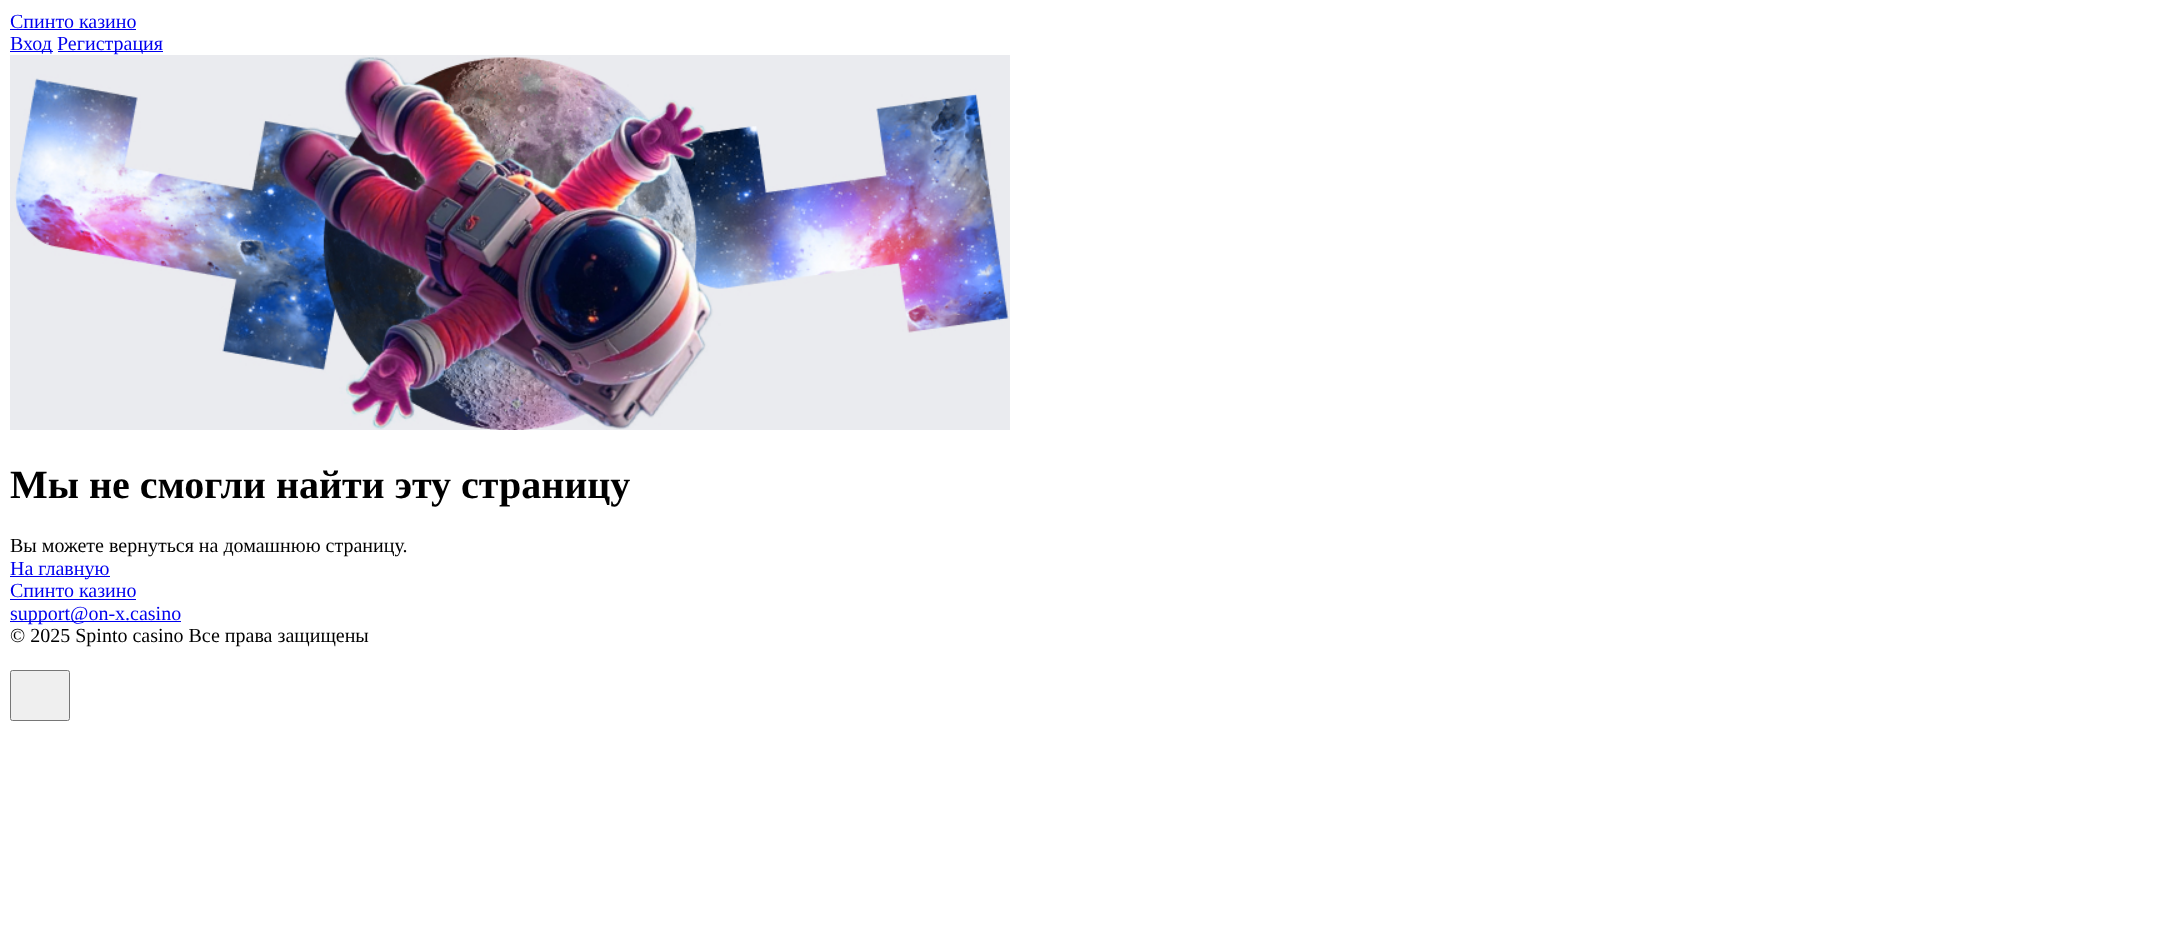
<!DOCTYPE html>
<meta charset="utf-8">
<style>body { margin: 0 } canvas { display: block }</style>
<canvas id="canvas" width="2178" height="930"></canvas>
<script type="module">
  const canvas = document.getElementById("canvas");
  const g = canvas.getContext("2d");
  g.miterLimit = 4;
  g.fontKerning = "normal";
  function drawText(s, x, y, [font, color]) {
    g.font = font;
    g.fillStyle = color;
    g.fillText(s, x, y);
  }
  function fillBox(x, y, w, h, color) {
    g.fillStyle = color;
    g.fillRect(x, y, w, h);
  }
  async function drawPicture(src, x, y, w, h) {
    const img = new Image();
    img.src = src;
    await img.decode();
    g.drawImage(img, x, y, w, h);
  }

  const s1 = ["20px Liberation Serif", "#0000EE"];
  const s2 = ["bold 40px Liberation Serif", "#000000"];
  const s3 = ["20px Liberation Serif", "#000000"];

  fillBox(0, 0, 2178, 930, "#FFFFFF");
  drawText("Спинто казино", 10, 28, s1);
  fillBox(10, 29, 126, 1, "#0000EE");
  fillBox(10, 51, 43, 1, "#0000EE");
  drawText("Вход", 10, 50, s1);
  fillBox(58, 51, 105, 1, "#0000EE");
  drawText("Регистрация", 57, 50, s1);
  await drawPicture("pic1.png", 10, 55, 1000, 375);
  drawText("Мы не смогли найти эту страницу", 10, 498, s2);
  drawText("Вы можете вернуться на домашнюю страницу.", 10, 552, s3);
  fillBox(10, 576, 100, 1, "#0000EE");
  drawText("На главную", 10, 575, s1);
  drawText("Спинто казино", 10, 597, s1);
  fillBox(10, 599, 126, 1, "#0000EE");
  fillBox(10, 621, 171, 1, "#0000EE");
  drawText("support@on-x.casino", 10, 620, s1);
  drawText("© 2025 Spinto casino Все права защищены", 10, 642, s3);
  g.fillStyle = "#EFEFEF";
  g.beginPath();
  g.roundRect(10.5, 670.5, 59, 50, 2);
  g.fill();
  g.strokeStyle = "#767676";
  g.stroke();
</script>
